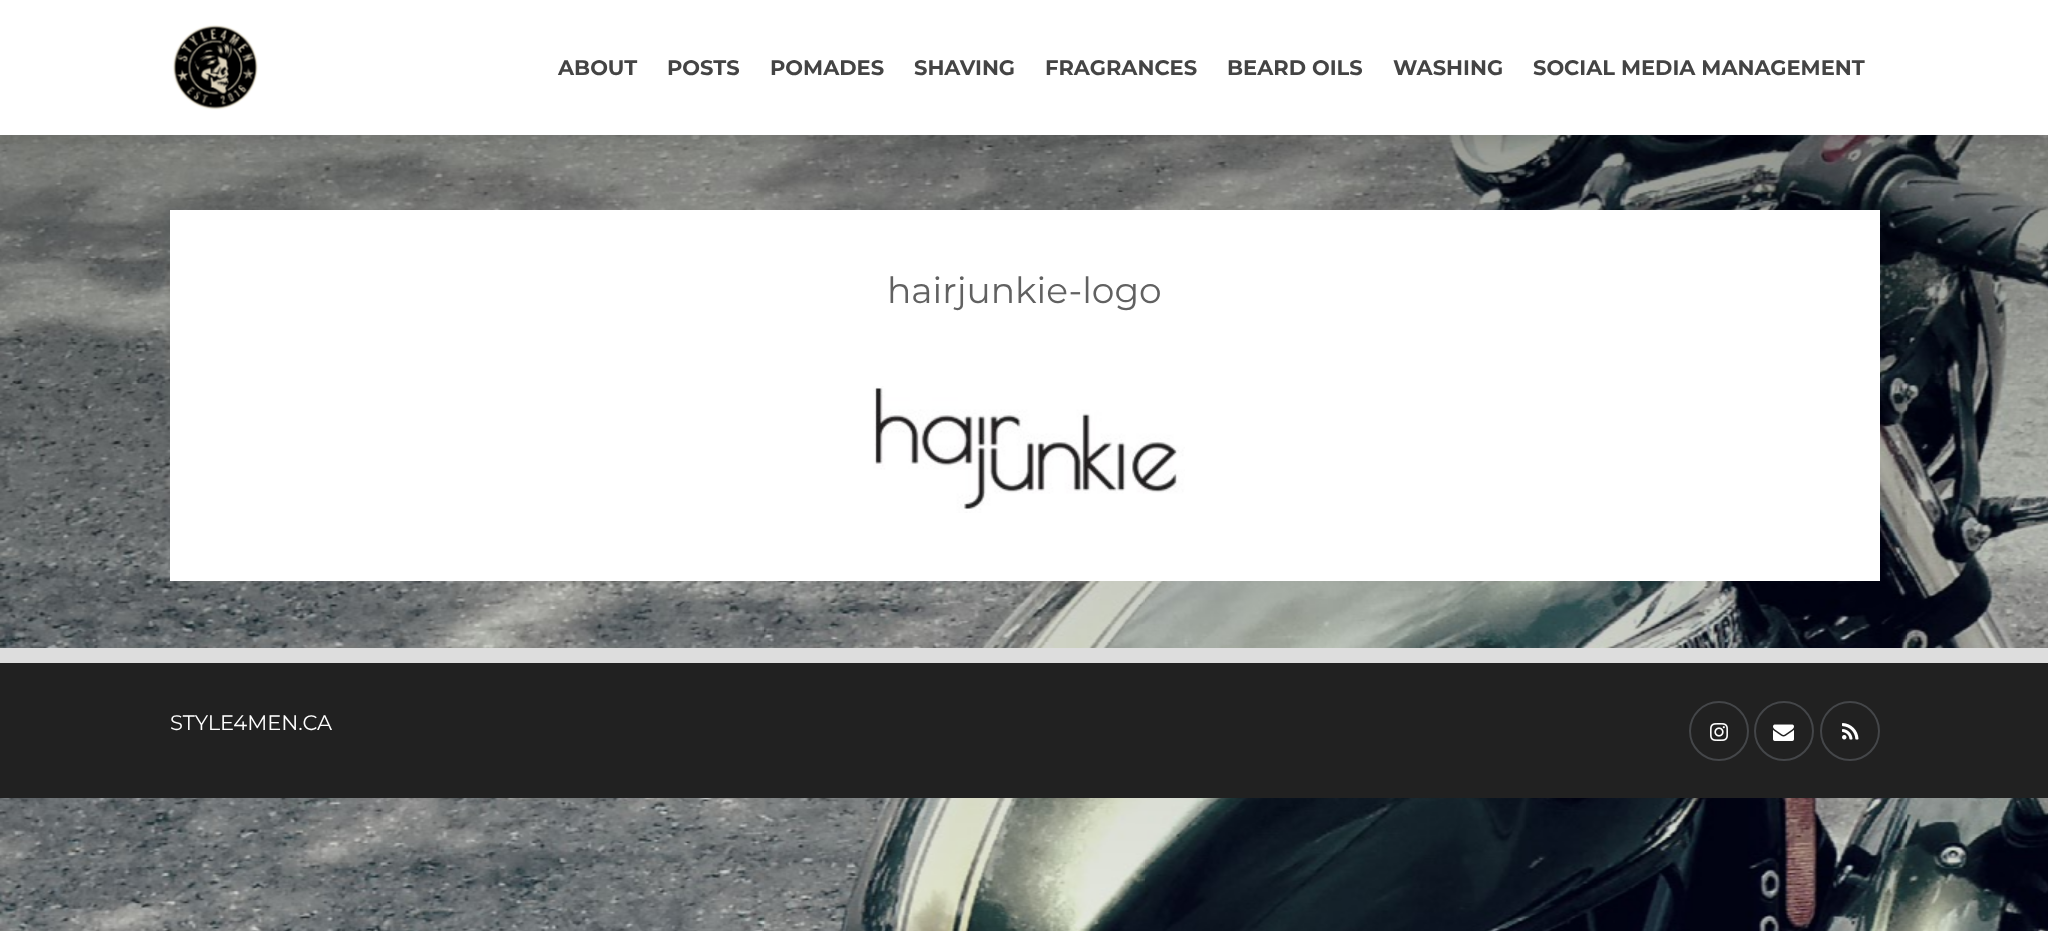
<!DOCTYPE html>
<meta charset="utf-8">
<style>body { margin: 0 } canvas { display: block }</style>
<canvas id="canvas" width="2048" height="931"></canvas>
<script type="module">
  const canvas = document.getElementById("canvas");
  const g = canvas.getContext("2d");
  g.miterLimit = 4;
  g.fontKerning = "normal";
  function drawText(s, x, y, [font, color]) {
    g.font = font;
    g.fillStyle = color;
    g.fillText(s, x, y);
  }
  function fillBox(x, y, w, h, color) {
    g.fillStyle = color;
    g.fillRect(x, y, w, h);
  }
  async function drawPicture(src, x, y, w, h) {
    const img = new Image();
    img.src = src;
    await img.decode();
    g.drawImage(img, x, y, w, h);
  }

  const s1 = ["bold 21px Montserrat", "#444444"];
  const s2 = ["36px Montserrat", "#616161"];
  const s3 = ["21px Montserrat", "#FFFFFF"];

  fillBox(0, 0, 2048, 931, "#FFFFFF");
  await drawPicture("pic1.png", 0, 135, 2048, 796);
  g.fillStyle = "rgba(0, 0, 0, 0.1)";
  g.filter = "blur(7.5px)";
  g.beginPath();
  g.rect(0, 6, 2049, 135);
  g.fill();
  g.filter = "none";
  fillBox(0, 0, 2048, 135, "#FFFFFF");
  await drawPicture("pic2.png", 173, 25, 85, 85);
  drawText("ABOUT", 558, 75, s1);
  drawText("POSTS", 667, 75, s1);
  drawText("POMADES", 770, 75, s1);
  drawText("SHAVING", 914, 75, s1);
  drawText("FRAGRANCES", 1045, 75, s1);
  drawText("BEARD OILS", 1227, 75, s1);
  drawText("WASHING", 1393, 75, s1);
  drawText("SOCIAL MEDIA MANAGEMENT", 1533, 75, s1);
  fillBox(170, 210, 1710, 371, "#FFFFFF");
  drawText("hairjunkie-logo", 887, 303, s2);
  await drawPicture("pic3.png", 873, 386, 312, 127);
  fillBox(0, 648, 2048, 15, "#DDDDDD");
  fillBox(0, 663, 2048, 135, "#212121");
  drawText("STYLE4MEN.CA", 170, 730, s3);
  g.beginPath();
  g.arc(1719, 731, 29, 0, Math.PI * 2);
  g.strokeStyle = "#444649";
  g.lineWidth = 2;
  g.stroke();
  await drawPicture("pic4.png", 1710, 723, 18, 18);
  g.beginPath();
  g.arc(1784, 731, 29, 0, Math.PI * 2);
  g.stroke();
  await drawPicture("pic5.png", 1773, 724, 21, 17);
  g.beginPath();
  g.arc(1850, 731, 29, 0, Math.PI * 2);
  g.stroke();
  await drawPicture("pic6.png", 1842, 723, 17, 17);
</script>
